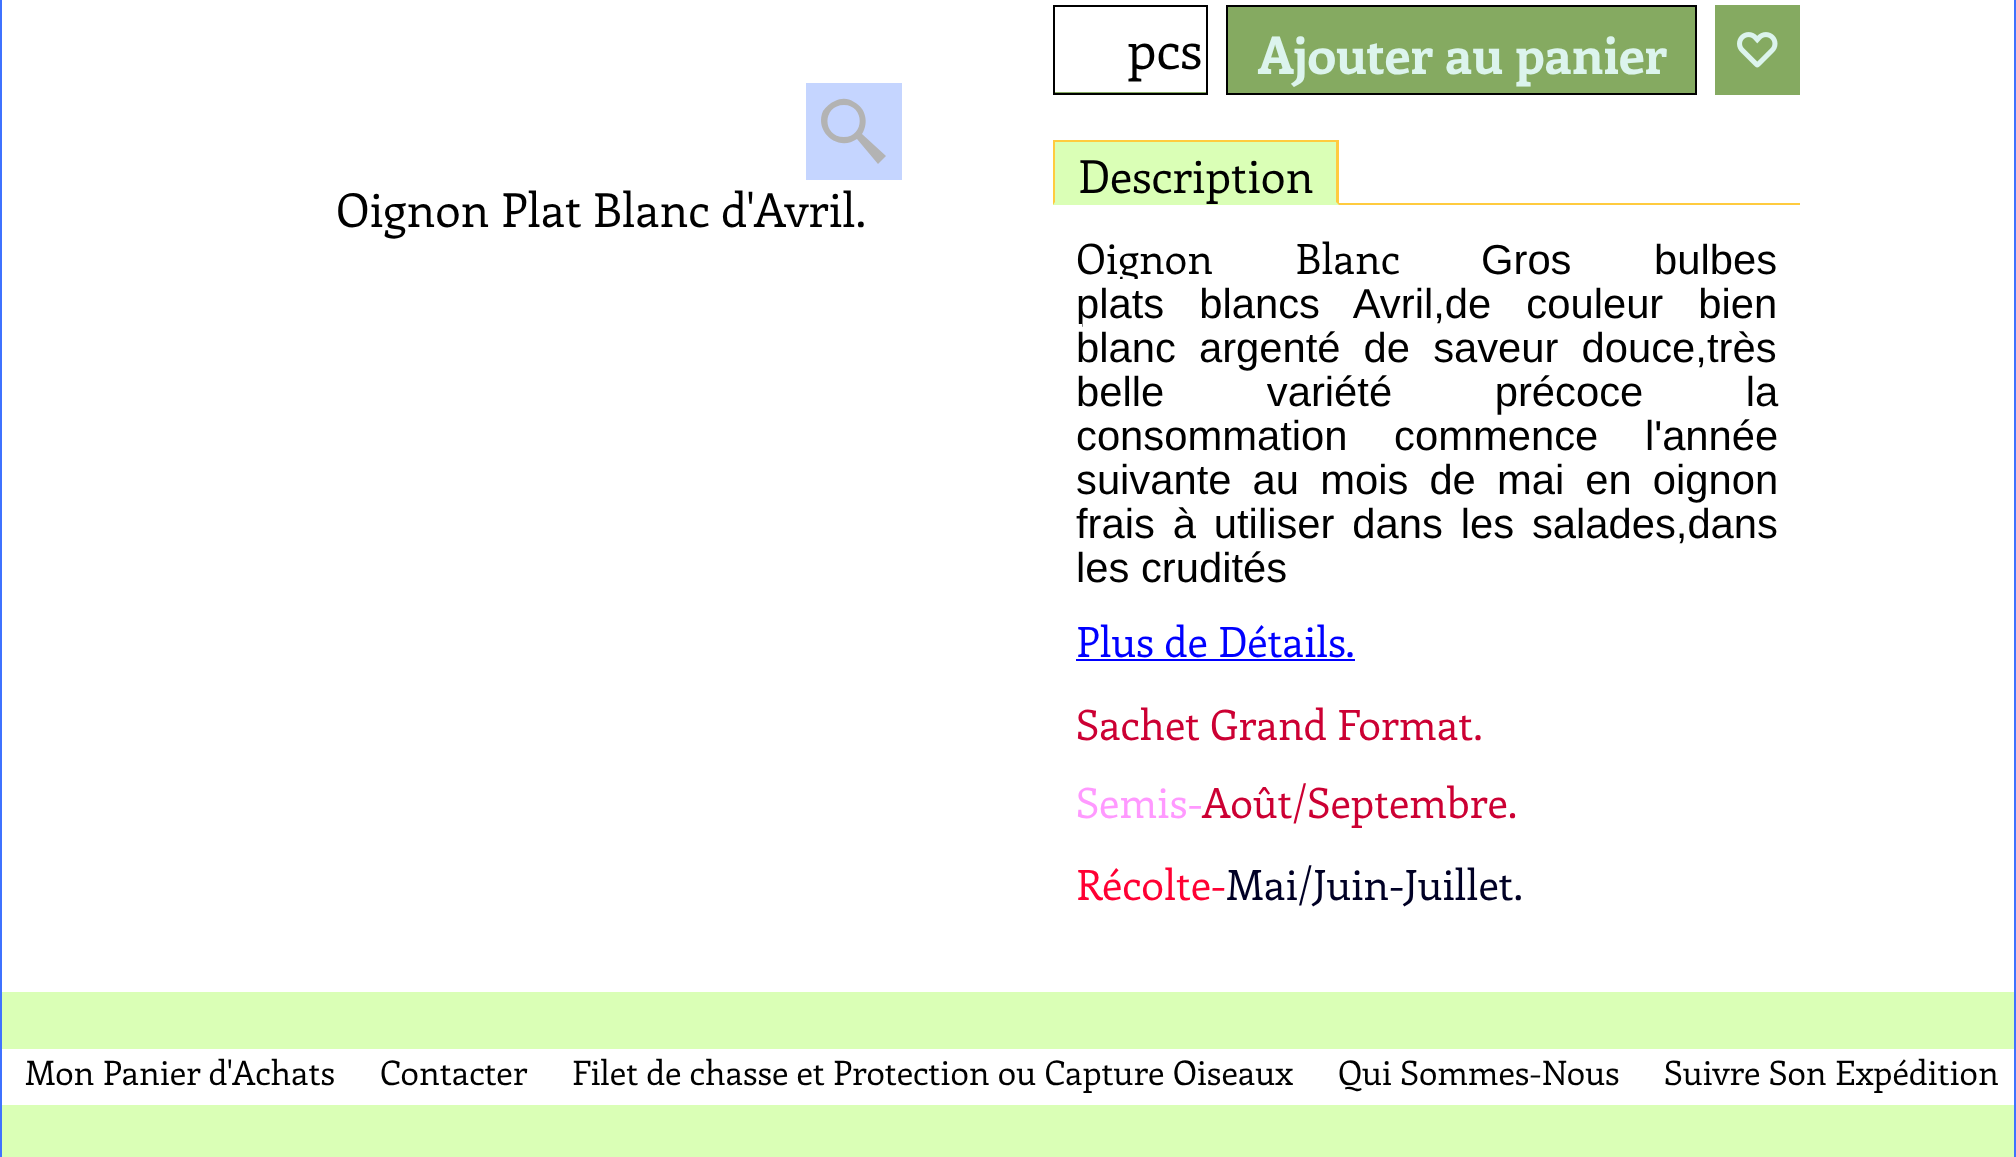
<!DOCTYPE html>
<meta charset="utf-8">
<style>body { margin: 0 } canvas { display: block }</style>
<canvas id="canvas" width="2016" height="1157"></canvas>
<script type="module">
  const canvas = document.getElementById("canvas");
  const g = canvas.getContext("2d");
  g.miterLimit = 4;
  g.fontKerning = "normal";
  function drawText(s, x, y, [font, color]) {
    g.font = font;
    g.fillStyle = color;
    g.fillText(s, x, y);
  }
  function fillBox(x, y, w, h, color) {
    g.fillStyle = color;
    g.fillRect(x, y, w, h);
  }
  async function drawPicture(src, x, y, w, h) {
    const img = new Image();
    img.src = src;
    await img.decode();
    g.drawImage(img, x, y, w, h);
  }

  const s1 = ["46.75px Enriqueta", "#000000"];
  const s2 = ["52px Enriqueta", "#000000"];
  const s3 = ["bold 52px Enriqueta", "#DCF4ED"];
  const s4 = ["45.5px Enriqueta", "#000000"];
  const s5 = ["41.75px Enriqueta", "#000000"];
  const s6 = ["41.75px Liberation Sans", "#000000"];
  const s7 = ["41.75px Enriqueta", "#0000FF"];
  const s8 = ["41.75px Enriqueta", "#CC0033"];
  const s9 = ["41.75px Enriqueta", "#FF99FF"];
  const s10 = ["41.75px Enriqueta", "#FF0033"];
  const s11 = ["41.75px Enriqueta", "#000025"];
  const s12 = ["33.75px Enriqueta", "#000000"];

  fillBox(0, 0, 2016, 1157, "#FFFFFF");
  fillBox(2, 992, 2012, 165, "#DAFFB6");
  g.strokeStyle = "#3F72FF";
  g.lineWidth = 2;
  g.strokeRect(1, -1, 2014, 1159);
  fillBox(806, 83, 96, 97, "#C5D5FF");
  g.fillStyle = "#B3B3B3";
  g.beginPath();
  g.moveTo(862, 134);
  g.bezierCurveTo(869, 123, 866, 108, 854, 102);
  g.bezierCurveTo(848, 98, 841, 98, 835, 101);
  g.bezierCurveTo(830, 103, 826, 107, 823, 111);
  g.bezierCurveTo(814, 132, 838, 152, 857, 139);
  g.lineTo(878, 164);
  g.lineTo(886, 156);
  g.closePath();
  g.moveTo(844, 137);
  g.bezierCurveTo(822, 137, 822, 105, 844, 105);
  g.bezierCurveTo(865, 105, 865, 137, 844, 137);
  g.closePath();
  g.fill();
  drawText("Oignon Plat Blanc d'Avril.", 336, 227, s1);
  fillBox(1055, 92, 151, 1, "#85AA61");
  g.strokeStyle = "#000000";
  g.strokeRect(1054, 6, 153, 88);
  drawText("pcs", 1127, 69, s2);
  g.fillStyle = "#85AA61";
  g.beginPath();
  g.rect(1227, 6, 469, 88);
  g.fill();
  g.stroke();
  drawText("Ajouter au panier", 1258, 74, s3);
  fillBox(1715, 5, 85, 90, "#85AA61");
  await drawPicture("pic1.png", 1737, 32, 41, 36);
  fillBox(1053, 142, 286, 63, "#DAFFB6");
  fillBox(1053, 140, 286, 2, "#FFCB3F");
  g.beginPath();
  g.moveTo(1339, 140);
  g.lineTo(1339, 205);
  g.lineTo(1336, 202);
  g.lineTo(1336, 142);
  g.closePath();
  g.fill();
  g.beginPath();
  g.moveTo(1053, 205);
  g.lineTo(1053, 140);
  g.lineTo(1055, 142);
  g.lineTo(1055, 202);
  g.closePath();
  g.fill();
  drawText("Description", 1078, 193, s4);
  fillBox(1339, 203, 461, 2, "#FFCB3F");
  g.wordSpacing = "72px";
  drawText("Oignon Blanc", 1076, 274, s5);
  g.wordSpacing = "71px";
  drawText("Gros bulbes", 1481, 274, s6);
  g.wordSpacing = "23.5px";
  drawText("plats blancs Avril,de couleur bien", 1076, 318, s6);
  fillBox(1118, 279, 20, 6, "#FFFFFF");
  fillBox(1078, 324, 4, 3, "#FFFFFF");
  g.wordSpacing = "11.5px";
  drawText("blanc argenté de saveur douce,très", 1076, 362, s6);
  g.wordSpacing = "91px";
  drawText("belle variété précoce la", 1076, 406, s6);
  g.wordSpacing = "35px";
  drawText("consommation commence l'année", 1076, 450, s6);
  g.wordSpacing = "9.5px";
  drawText("suivante au mois de mai en oignon", 1076, 494, s6);
  g.wordSpacing = "6.25px";
  drawText("frais à utiliser dans les salades,dans", 1076, 538, s6);
  g.wordSpacing = "0px";
  drawText("les crudités", 1076, 582, s6);
  drawText("Plus de Détails.", 1076, 657, s7);
  fillBox(1076, 659, 279, 2, "#0000FF");
  drawText("Sachet Grand Format.", 1076, 740, s8);
  drawText("Semis-", 1076, 818, s9);
  drawText("Août/Septembre.", 1202, 818, s8);
  drawText("Récolte-", 1076, 900, s10);
  drawText("Mai/Juin-Juillet.", 1226, 900, s11);
  fillBox(2, 1049, 2012, 56, "#FFFFFF");
  drawText("Mon Panier d'Achats", 25, 1085, s12);
  drawText("Contacter", 380, 1085, s12);
  drawText("Filet de chasse et Protection ou Capture Oiseaux", 572, 1085, s12);
  drawText("Qui Sommes-Nous", 1338, 1085, s12);
  drawText("Suivre Son Expédition", 1664, 1085, s12);
</script>
